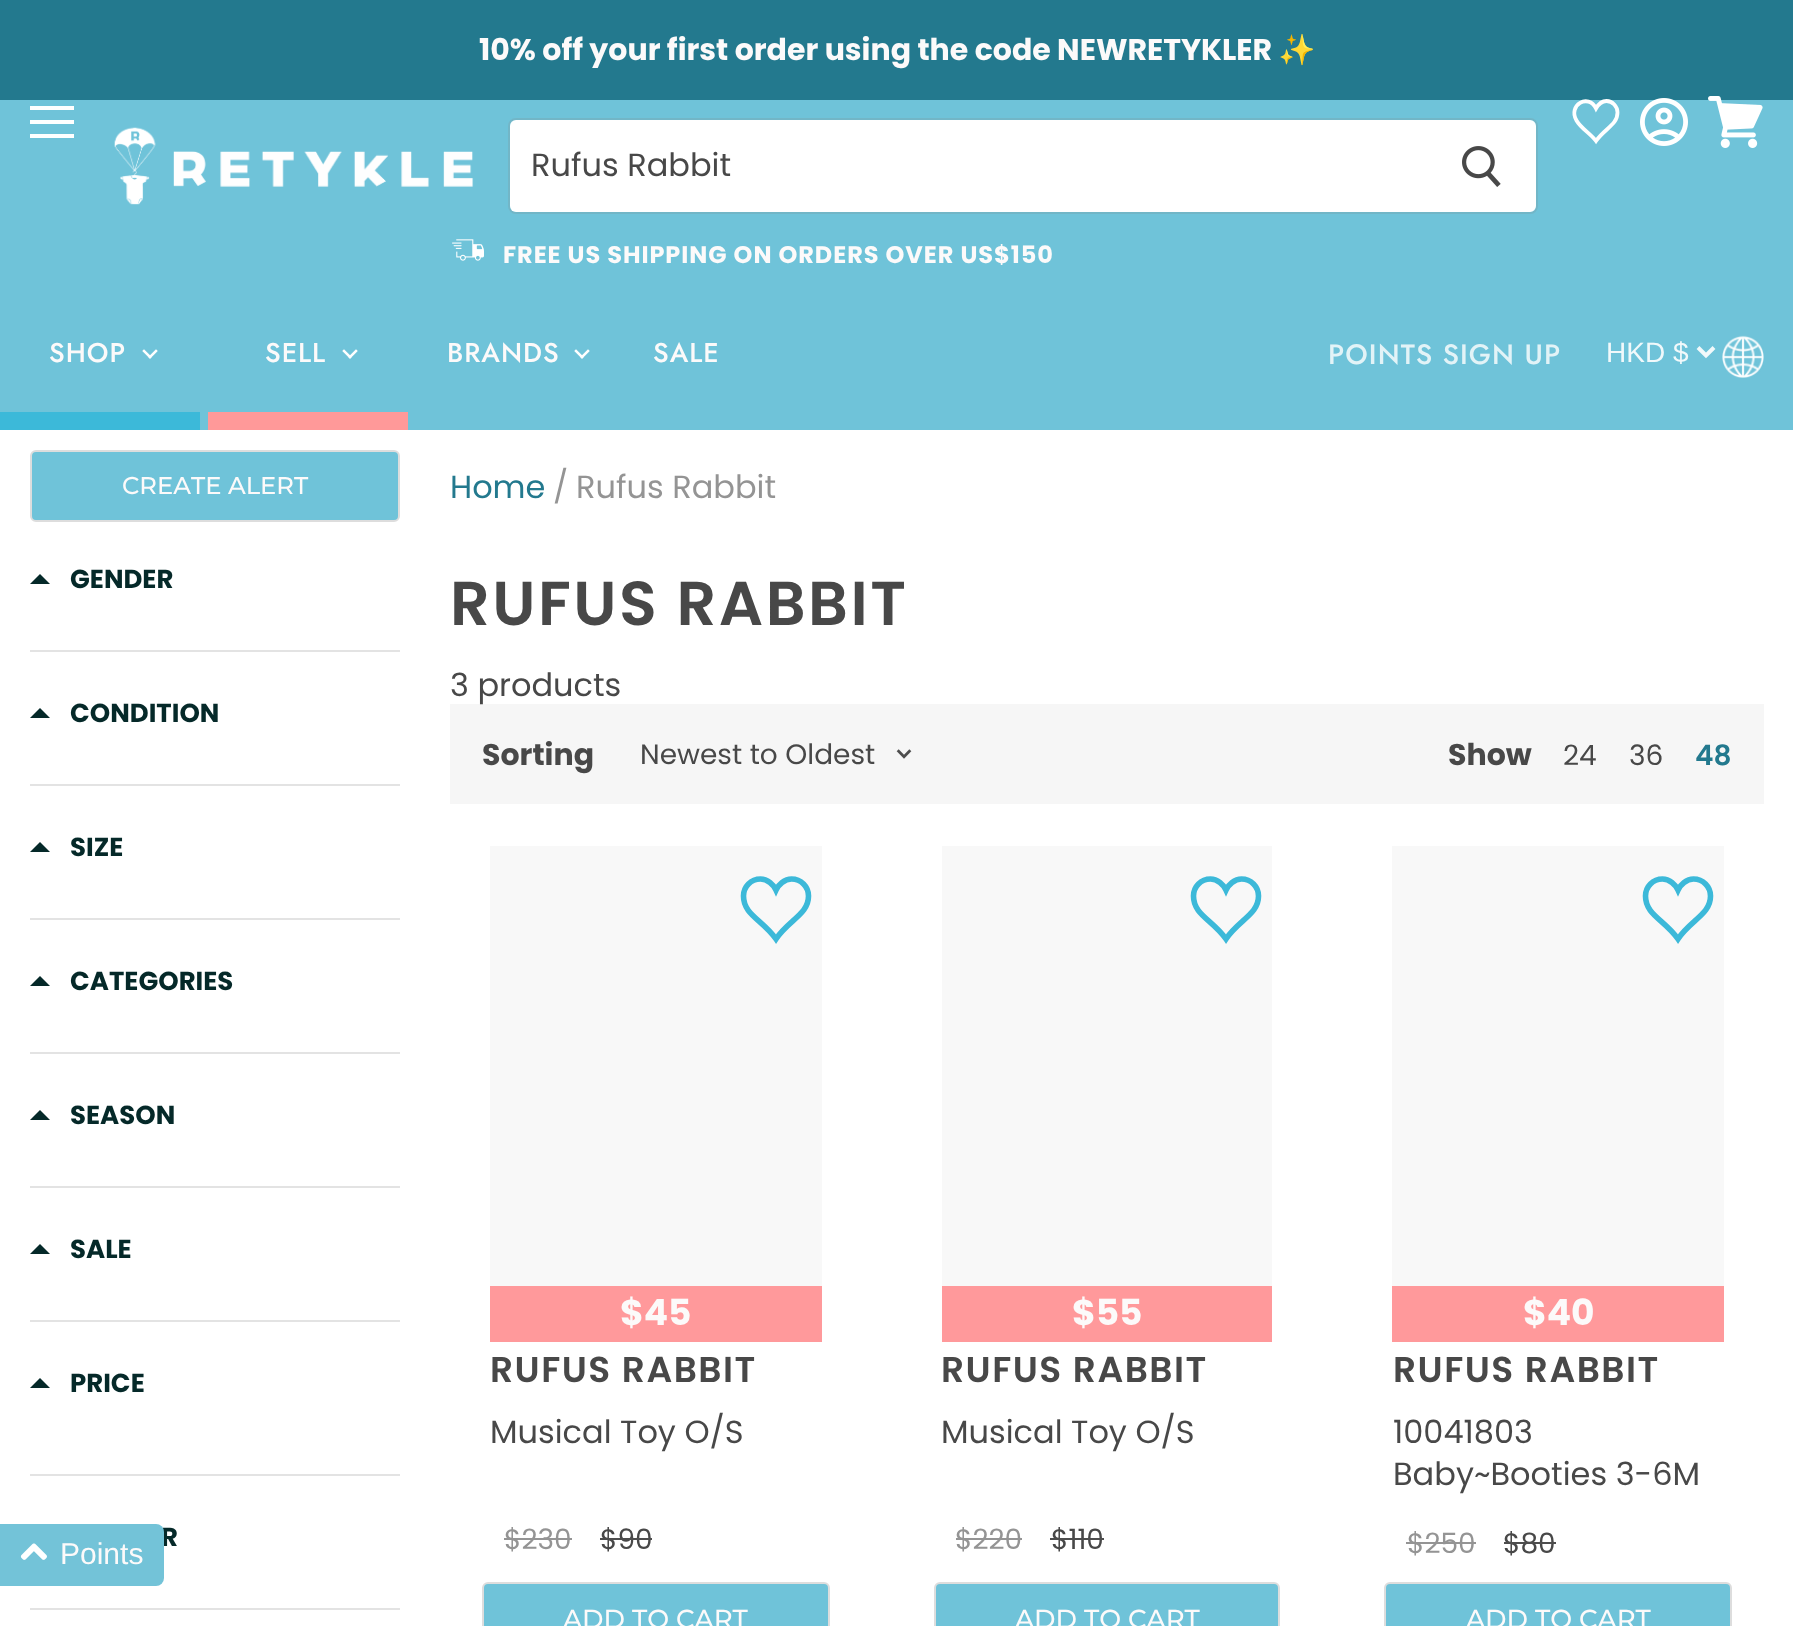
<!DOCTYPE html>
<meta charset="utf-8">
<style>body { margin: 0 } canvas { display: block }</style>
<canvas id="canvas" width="1793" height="1626"></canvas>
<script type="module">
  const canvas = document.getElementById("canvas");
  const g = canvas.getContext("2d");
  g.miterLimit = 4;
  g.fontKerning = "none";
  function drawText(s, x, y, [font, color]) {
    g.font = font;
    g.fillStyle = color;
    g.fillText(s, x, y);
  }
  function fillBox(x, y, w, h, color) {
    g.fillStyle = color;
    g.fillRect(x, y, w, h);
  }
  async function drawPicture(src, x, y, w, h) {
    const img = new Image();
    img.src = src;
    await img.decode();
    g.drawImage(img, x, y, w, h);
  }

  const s1 = ["bold 30px Poppins", "#FCFAFA"];
  const s2 = ["bold 30px Noto Color Emoji", "#FCFAFA"];
  const s3 = ["32px Poppins", "#484848"];
  const s4 = ["bold 24px Poppins", "#FCFAFA"];
  const s5 = ["500 27px Jost", "#FCFAFA"];
  const s6 = ["500 28px Jost", "#E2F3F7"];
  const s7 = ["28px Liberation Sans", "#F1F9FB"];
  const s8 = ["500 24.25px Montserrat", "#FCFAFA"];
  const s9 = ["bold 26px Poppins", "#052929"];
  const s10 = ["32px Poppins", "#23798E"];
  const s11 = ["32px Poppins", "#949494"];
  const s12 = ["600 62px Poppins", "#484848"];
  const s13 = ["bold 30px Poppins", "#484848"];
  const s14 = ["28px Poppins", "#484848"];
  const s15 = ["600 28px Poppins", "#23798E"];
  const s16 = ["bold 36px Poppins", "#FCFAFA"];
  const s17 = ["600 36px Poppins", "#484848"];
  const s18 = ["28px Poppins", "#949494"];
  const s19 = ["500 26px Montserrat", "#FCFAFA"];
  const s20 = ["30px Liberation Sans", "#FCFAFA"];

  fillBox(0, 0, 1793, 1626, "#FFFFFF");
  fillBox(0, 0, 1793, 100, "#23798E");
  drawText("10% off your first order using the code NEWRETYKLER", 479, 60, s1);
  drawText("✨", 1278, 60, s2);
  fillBox(0, 100, 1793, 330, "#6FC3D9");
  fillBox(30, 106, 44, 4, "#FFFFFF");
  fillBox(30, 120, 44, 4, "#FFFFFF");
  fillBox(30, 134, 44, 4, "#FFFFFF");
  g.beginPath();
  g.moveTo(1606.5, 101);
  g.bezierCurveTo(1601.5, 101, 1598, 105, 1596, 108.5);
  g.bezierCurveTo(1588.5, 93, 1567.5, 105, 1576.5, 120.5);
  g.bezierCurveTo(1581, 128.5, 1590.5, 133.5, 1596, 141);
  g.bezierCurveTo(1604.5, 128.5, 1617.5, 125, 1617.5, 112.5);
  g.bezierCurveTo(1617.5, 106.5, 1612.5, 101, 1606.5, 101);
  g.closePath();
  g.strokeStyle = "#FFFFFF";
  g.lineWidth = 3.8;
  g.stroke();
  await drawPicture("pic1.png", 1640, 98, 48, 48);
  await drawPicture("pic2.png", 1708, 96, 55, 52);
  await drawPicture("pic3.png", 114, 127, 360, 78);
  g.beginPath();
  g.roundRect(509, 119, 1028, 94, 7);
  g.strokeStyle = "rgba(128, 128, 128, 0.2)";
  g.lineWidth = 2;
  g.stroke();
  g.beginPath();
  g.roundRect(510, 120, 918, 92, [6, 0, 0, 6]);
  g.fill();
  drawText("Rufus Rabbit", 531, 176, s3);
  g.fillStyle = "#FFFFFF";
  g.beginPath();
  g.roundRect(1429, 121, 106, 90, [0, 5, 5, 0]);
  g.fill();
  g.strokeStyle = "#FFFFFF";
  g.stroke();
  await drawPicture("pic4.png", 1462, 146, 39, 41);
  await drawPicture("pic5.png", 452, 239, 32, 22);
  g.letterSpacing = "0.95px";
  drawText("FREE US SHIPPING ON ORDERS OVER US$150", 503, 263, s4);
  fillBox(0, 412, 200, 18, "#3CB9D9");
  g.letterSpacing = "1px";
  drawText("SHOP", 49, 362, s5);
  await drawPicture("pic6.png", 142, 349, 16, 10);
  fillBox(208, 412, 200, 18, "#FF9999");
  drawText("SELL", 265, 362, s5);
  await drawPicture("pic6.png", 342, 349, 16, 10);
  drawText("BRANDS", 447, 362, s5);
  await drawPicture("pic6.png", 574, 349, 16, 10);
  drawText("SALE", 653, 362, s5);
  g.letterSpacing = "1.1px";
  drawText("POINTS SIGN UP", 1328, 364, s6);
  g.beginPath();
  g.moveTo(1698, 347.5);
  g.lineTo(1706, 355.5);
  g.lineTo(1714, 347.5);
  g.strokeStyle = "#F1F9FB";
  g.lineWidth = 4;
  g.stroke();
  g.letterSpacing = "0px";
  drawText("HKD $", 1606, 362, s7);
  await drawPicture("pic7.png", 1722, 335, 42, 43);
  g.fillStyle = "#6FC3D9";
  g.beginPath();
  g.roundRect(31, 451, 368, 70, 5);
  g.fill();
  g.strokeStyle = "#DDDDDD";
  g.lineWidth = 2;
  g.stroke();
  drawText("CREATE ALERT", 122, 494, s8);
  g.fillStyle = "#052929";
  g.beginPath();
  g.moveTo(50, 584);
  g.lineTo(30, 584);
  g.lineTo(40, 574);
  g.closePath();
  g.fill();
  drawText("GENDER", 70, 588, s9);
  fillBox(30, 650, 370, 2, "#E3E3E3");
  g.fillStyle = "#052929";
  g.beginPath();
  g.moveTo(50, 718);
  g.lineTo(30, 718);
  g.lineTo(40, 708);
  g.closePath();
  g.fill();
  drawText("CONDITION", 70, 722, s9);
  fillBox(30, 784, 370, 2, "#E3E3E3");
  g.fillStyle = "#052929";
  g.beginPath();
  g.moveTo(50, 852);
  g.lineTo(30, 852);
  g.lineTo(40, 842);
  g.closePath();
  g.fill();
  drawText("SIZE", 70, 856, s9);
  fillBox(30, 918, 370, 2, "#E3E3E3");
  g.fillStyle = "#052929";
  g.beginPath();
  g.moveTo(50, 986);
  g.lineTo(30, 986);
  g.lineTo(40, 976);
  g.closePath();
  g.fill();
  drawText("CATEGORIES", 70, 990, s9);
  fillBox(30, 1052, 370, 2, "#E3E3E3");
  g.fillStyle = "#052929";
  g.beginPath();
  g.moveTo(50, 1120);
  g.lineTo(30, 1120);
  g.lineTo(40, 1110);
  g.closePath();
  g.fill();
  drawText("SEASON", 70, 1124, s9);
  fillBox(30, 1186, 370, 2, "#E3E3E3");
  g.fillStyle = "#052929";
  g.beginPath();
  g.moveTo(50, 1254);
  g.lineTo(30, 1254);
  g.lineTo(40, 1244);
  g.closePath();
  g.fill();
  drawText("SALE", 70, 1258, s9);
  fillBox(30, 1320, 370, 2, "#E3E3E3");
  g.fillStyle = "#052929";
  g.beginPath();
  g.moveTo(50, 1388);
  g.lineTo(30, 1388);
  g.lineTo(40, 1378);
  g.closePath();
  g.fill();
  drawText("PRICE", 70, 1392, s9);
  fillBox(30, 1474, 370, 2, "#E3E3E3");
  drawText("R", 161, 1546, s9);
  fillBox(30, 1608, 370, 2, "#E3E3E3");
  drawText("Home", 450, 498, s10);
  drawText("/", 553, 498, s11);
  drawText("Rufus Rabbit", 576, 498, s11);
  g.letterSpacing = "2.5px";
  drawText("RUFUS RABBIT", 450, 625, s12);
  fillBox(450, 704, 1314, 100, "#F6F6F6");
  g.letterSpacing = "0px";
  drawText("3 products", 450, 696, s3);
  drawText("Sorting", 482, 765, s13);
  drawText("Newest to Oldest", 640, 764, s14);
  await drawPicture("pic8.png", 896, 749, 16, 10);
  drawText("Show", 1448, 765, s13);
  drawText("24", 1563, 765, s14);
  drawText("36", 1629, 765, s14);
  drawText("48", 1695, 765, s15);
  fillBox(490, 846, 332, 440, "#F8F8F8");
  g.beginPath();
  g.moveTo(791.5, 879);
  g.bezierCurveTo(784.5, 879, 778.5, 884.5, 776, 890);
  g.bezierCurveTo(773.5, 884.5, 767.5, 879, 760.5, 879);
  g.bezierCurveTo(751, 879, 743.5, 886.5, 743.5, 896);
  g.bezierCurveTo(743.5, 915, 763, 920, 776, 939);
  g.bezierCurveTo(788.5, 920, 808.5, 914.5, 808.5, 896);
  g.bezierCurveTo(808.5, 886.5, 801, 879, 791.5, 879);
  g.closePath();
  g.strokeStyle = "#3CB9D9";
  g.lineWidth = 5.6;
  g.stroke();
  fillBox(490, 1286, 332, 56, "#FF999B");
  drawText("$45", 620, 1325, s16);
  g.letterSpacing = "1.5px";
  drawText("RUFUS RABBIT", 490, 1382, s17);
  g.letterSpacing = "0px";
  drawText("Musical Toy O/S", 490, 1443, s3);
  drawText("$230", 504, 1549, s18);
  fillBox(504, 1538, 68, 2, "#949494");
  drawText("$90", 600, 1549, s14);
  fillBox(600, 1538, 52, 2, "#4D4D4D");
  g.fillStyle = "#6FC3D9";
  g.beginPath();
  g.roundRect(483, 1583, 346, 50, 5);
  g.fill();
  g.strokeStyle = "#DDDDDD";
  g.lineWidth = 2;
  g.stroke();
  drawText("ADD TO CART", 563, 1628, s19);
  fillBox(942, 846, 330, 440, "#F8F8F8");
  g.beginPath();
  g.moveTo(1241.5, 879);
  g.bezierCurveTo(1234.5, 879, 1228.5, 884.5, 1226, 890);
  g.bezierCurveTo(1223.5, 884.5, 1217.5, 879, 1210.5, 879);
  g.bezierCurveTo(1201, 879, 1193.5, 886.5, 1193.5, 896);
  g.bezierCurveTo(1193.5, 915, 1213, 920, 1226, 939);
  g.bezierCurveTo(1238.5, 920, 1258.5, 914.5, 1258.5, 896);
  g.bezierCurveTo(1258.5, 886.5, 1251, 879, 1241.5, 879);
  g.closePath();
  g.strokeStyle = "#3CB9D9";
  g.lineWidth = 5.6;
  g.stroke();
  fillBox(942, 1286, 330, 56, "#FF999B");
  drawText("$55", 1072, 1325, s16);
  g.letterSpacing = "1.5px";
  drawText("RUFUS RABBIT", 941, 1382, s17);
  g.letterSpacing = "0px";
  drawText("Musical Toy O/S", 941, 1443, s3);
  drawText("$220", 955, 1549, s18);
  fillBox(956, 1538, 66, 2, "#949494");
  drawText("$110", 1051, 1549, s14);
  fillBox(1050, 1538, 54, 2, "#4D4D4D");
  g.fillStyle = "#6FC3D9";
  g.beginPath();
  g.roundRect(935, 1583, 344, 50, 5);
  g.fill();
  g.strokeStyle = "#DDDDDD";
  g.lineWidth = 2;
  g.stroke();
  drawText("ADD TO CART", 1015, 1628, s19);
  fillBox(1392, 846, 332, 440, "#F8F8F8");
  g.beginPath();
  g.moveTo(1693.5, 879);
  g.bezierCurveTo(1686.5, 879, 1680.5, 884.5, 1678, 890);
  g.bezierCurveTo(1675.5, 884.5, 1669.5, 879, 1662.5, 879);
  g.bezierCurveTo(1653, 879, 1645.5, 886.5, 1645.5, 896);
  g.bezierCurveTo(1645.5, 915, 1665, 920, 1678, 939);
  g.bezierCurveTo(1690.5, 920, 1710.5, 914.5, 1710.5, 896);
  g.bezierCurveTo(1710.5, 886.5, 1703, 879, 1693.5, 879);
  g.closePath();
  g.strokeStyle = "#3CB9D9";
  g.lineWidth = 5.6;
  g.stroke();
  fillBox(1392, 1286, 332, 56, "#FF999B");
  drawText("$40", 1523, 1325, s16);
  g.letterSpacing = "1.5px";
  drawText("RUFUS RABBIT", 1393, 1382, s17);
  g.letterSpacing = "0px";
  drawText("10041803", 1393, 1443, s3);
  drawText("Baby~Booties 3-6M", 1393, 1485, s3);
  drawText("$250", 1407, 1553, s18);
  fillBox(1406, 1542, 70, 2, "#949494");
  drawText("$80", 1503, 1553, s14);
  fillBox(1504, 1542, 52, 2, "#4D4D4D");
  g.fillStyle = "#6FC3D9";
  g.beginPath();
  g.roundRect(1385, 1583, 346, 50, 5);
  g.fill();
  g.strokeStyle = "#DDDDDD";
  g.lineWidth = 2;
  g.stroke();
  drawText("ADD TO CART", 1466, 1628, s19);
  g.fillStyle = "#73C3D8";
  g.beginPath();
  g.roundRect(0, 1524, 164, 62, [0, 8, 8, 0]);
  g.fill();
  await drawPicture("pic9.png", 20, 1543, 27, 17);
  drawText("Points", 60, 1564, s20);
</script>
